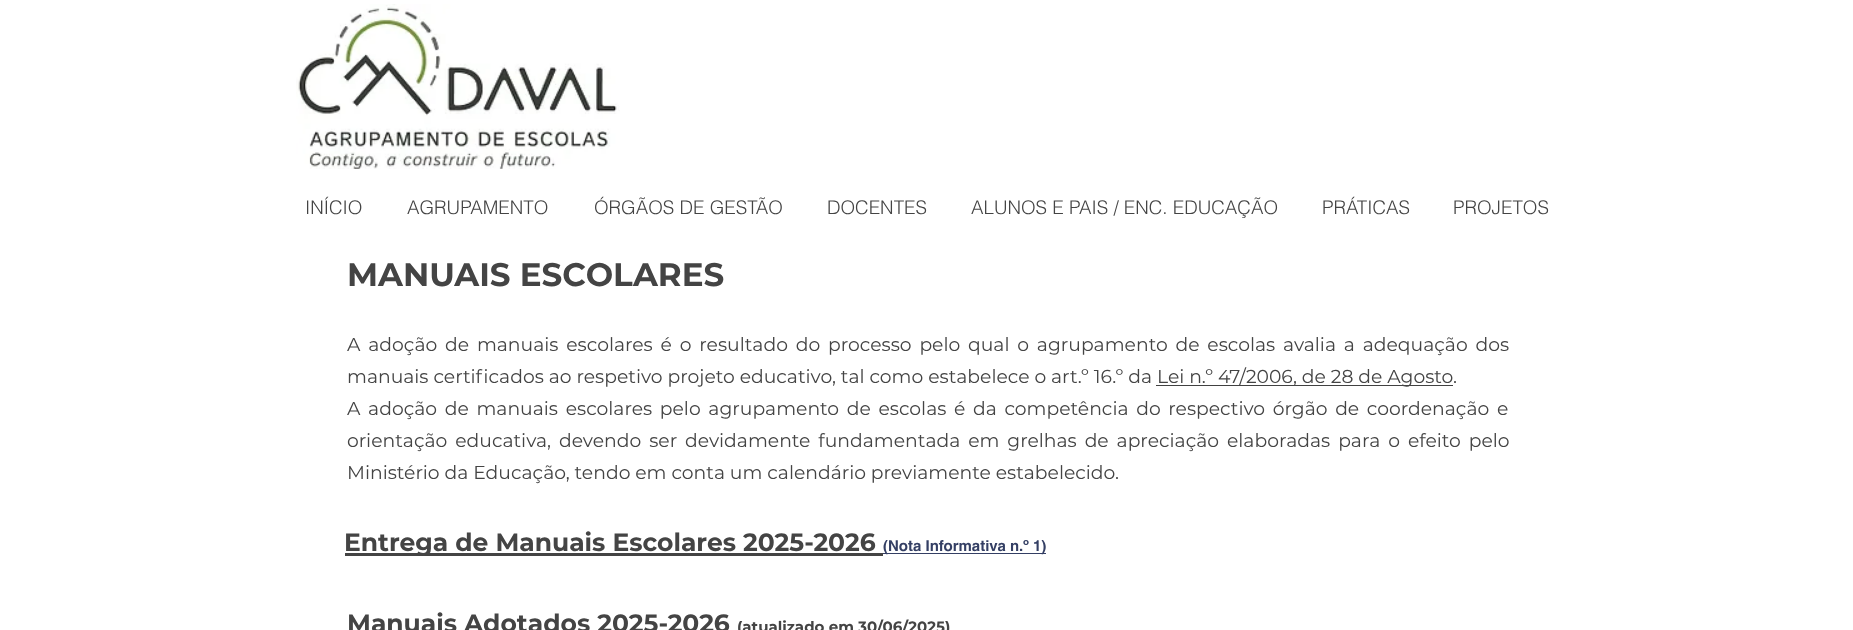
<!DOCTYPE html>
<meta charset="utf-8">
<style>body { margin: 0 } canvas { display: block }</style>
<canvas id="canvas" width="1853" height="630"></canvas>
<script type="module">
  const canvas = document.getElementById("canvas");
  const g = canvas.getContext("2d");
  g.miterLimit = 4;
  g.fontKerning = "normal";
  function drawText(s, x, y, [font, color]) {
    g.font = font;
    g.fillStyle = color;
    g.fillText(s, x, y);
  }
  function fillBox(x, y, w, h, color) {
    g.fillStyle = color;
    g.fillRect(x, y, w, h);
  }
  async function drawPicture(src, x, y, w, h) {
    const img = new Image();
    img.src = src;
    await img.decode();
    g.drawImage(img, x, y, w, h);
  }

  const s1 = ["300 18.75px helvetica", "#444444"];
  const s2 = ["bold 32.5px Montserrat", "#444444"];
  const s3 = ["18.75px Montserrat", "#444444"];
  const s4 = ["bold 25px Montserrat", "#444444"];
  const s5 = ["bold 15px helvetica", "#343F64"];
  const s6 = ["bold 15px Montserrat", "#444444"];

  fillBox(0, 0, 1853, 630, "#FFFFFF");
  await drawPicture("pic1.png", 296, 4, 324, 165);
  drawText("INÍCIO", 305, 214, s1);
  drawText("AGRUPAMENTO", 407, 214, s1);
  drawText("ÓRGÃOS DE GESTÃO", 594, 214, s1);
  drawText("DOCENTES", 827, 214, s1);
  drawText("ALUNOS E PAIS / ENC. EDUCAÇÃO", 971, 214, s1);
  drawText("PRÁTICAS", 1322, 214, s1);
  drawText("PROJETOS", 1453, 214, s1);
  drawText("MANUAIS ESCOLARES", 347, 286, s2);
  g.wordSpacing = "2.9px";
  drawText("A adoção de manuais escolares é o resultado do processo pelo qual o agrupamento de escolas avalia a adequação dos", 347, 351, s3);
  g.wordSpacing = "0px";
  drawText("manuais certificados ao respetivo projeto educativo, tal como estabelece o art.º 16.º da", 347, 383, s3);
  fillBox(1156, 385, 297, 1, "#414141");
  drawText("Lei n.º 47/2006, de 28 de Agosto.", 1157, 383, s3);
  g.wordSpacing = "2.75px";
  drawText("A adoção de manuais escolares pelo agrupamento de escolas é da competência do respectivo órgão de coordenação e", 347, 415, s3);
  g.wordSpacing = "3px";
  drawText("orientação educativa, devendo ser devidamente fundamentada em grelhas de apreciação elaboradas para o efeito pelo", 347, 447, s3);
  g.wordSpacing = "0px";
  drawText("Ministério da Educação, tendo em conta um calendário previamente estabelecido.", 347, 479, s3);
  fillBox(345, 553, 538, 3, "#444444");
  drawText("Entrega de Manuais Escolares 2025-2026", 344, 551, s4);
  fillBox(883, 553, 163, 1, "#343F64");
  drawText("(Nota Informativa n.º 1)", 883, 551, s5);
  drawText("Manuais Adotados 2025-2026", 347, 632, s4);
  drawText("(atualizado em 30/06/2025)", 737, 632, s6);
</script>
